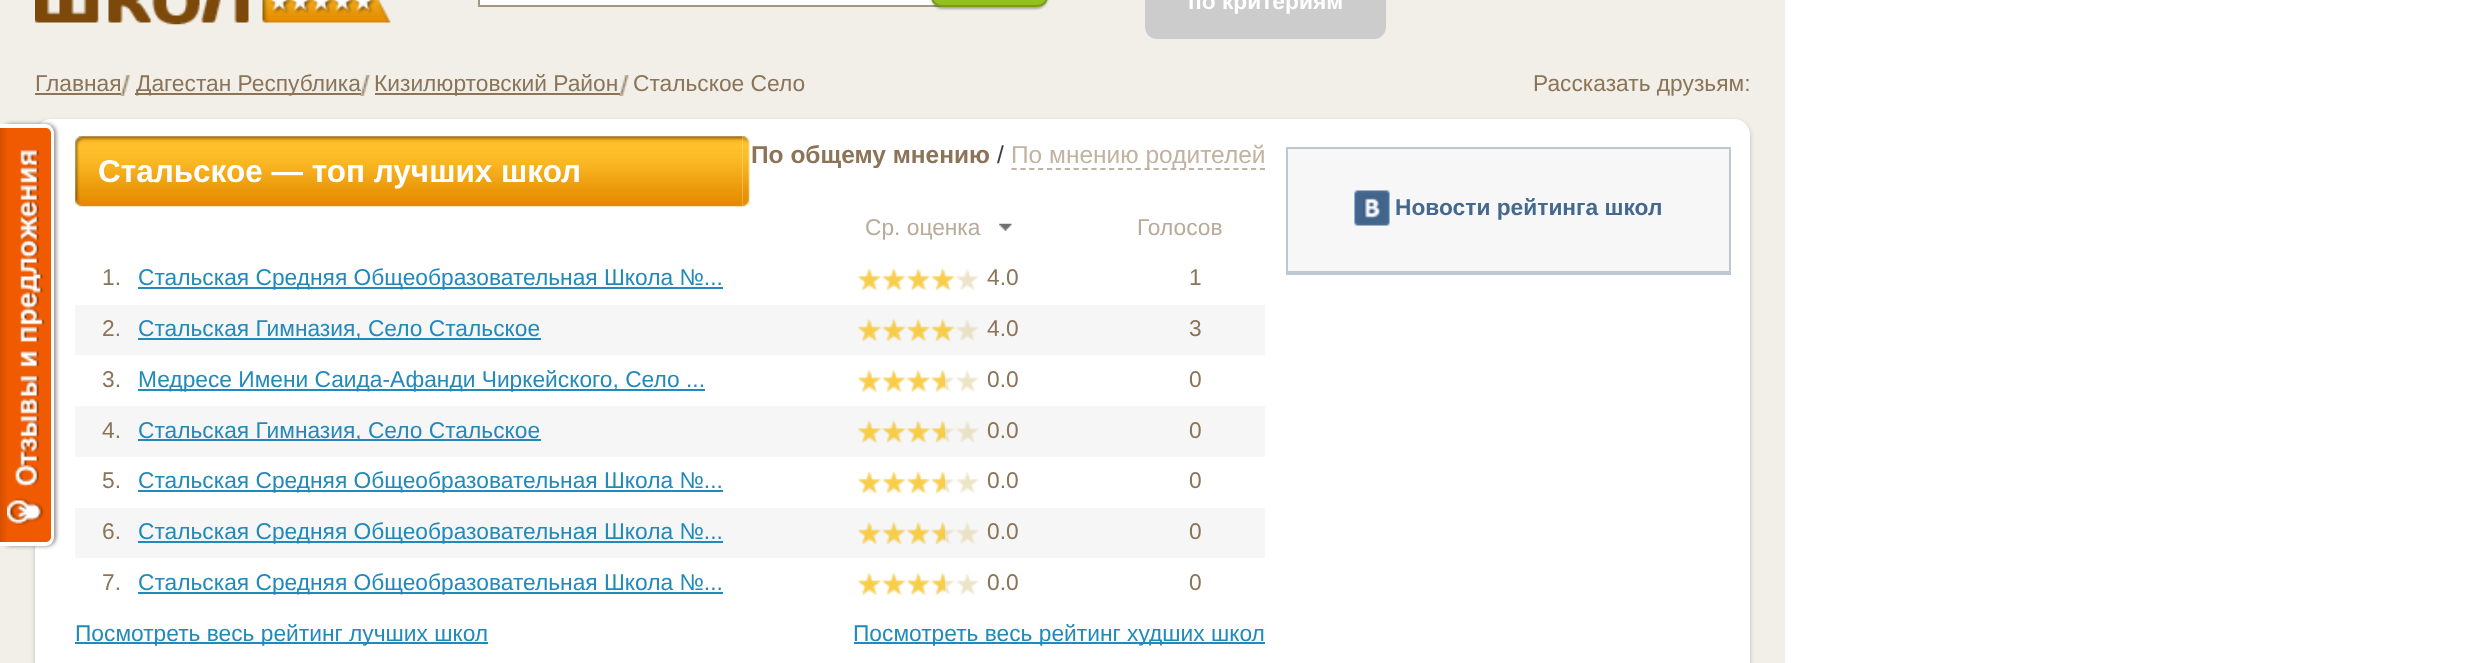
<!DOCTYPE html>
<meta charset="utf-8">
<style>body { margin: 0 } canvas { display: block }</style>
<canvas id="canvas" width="2476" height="663"></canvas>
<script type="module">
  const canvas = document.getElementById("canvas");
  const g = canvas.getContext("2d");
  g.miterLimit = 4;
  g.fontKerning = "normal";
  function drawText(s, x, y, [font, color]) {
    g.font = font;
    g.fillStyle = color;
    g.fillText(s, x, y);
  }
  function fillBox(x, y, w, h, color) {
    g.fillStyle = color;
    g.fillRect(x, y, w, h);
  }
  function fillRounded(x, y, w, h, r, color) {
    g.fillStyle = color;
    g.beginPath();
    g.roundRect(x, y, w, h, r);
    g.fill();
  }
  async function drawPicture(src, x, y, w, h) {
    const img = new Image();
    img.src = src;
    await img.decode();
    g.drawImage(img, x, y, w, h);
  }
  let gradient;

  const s1 = ["bold 22.75px Liberation Sans", "#FFFFFF"];
  const s2 = ["22.75px Liberation Sans", "#8B7458"];
  const s3 = ["bold 24.5px Liberation Sans", "#8B7458"];
  const s4 = ["24.5px Liberation Sans", "#3C3C3C"];
  const s5 = ["24.5px Liberation Sans", "#C1B3A1"];
  const s6 = ["bold 31.5px Liberation Sans", "#FFFFFF"];
  const s7 = ["22.75px Liberation Sans", "#B9AB99"];
  const s8 = ["22.75px Liberation Sans", "#228ABA"];
  const s9 = ["bold 22.75px Liberation Sans", "#45688E"];

  fillBox(0, 0, 2476, 663, "#FFFFFF");
  fillBox(0, 0, 1785, 663, "#F1EFE8");
  g.fillStyle = "#BAB9B5";
  g.filter = "blur(2px)";
  g.beginPath();
  g.roundRect(35, 121, 1715, 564, 16);
  g.fill();
  g.filter = "none";
  fillRounded(35, 119, 1715, 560, 16, "#FFFFFF");
  g.fillStyle = "#888888";
  g.filter = "blur(2px)";
  g.beginPath();
  g.roundRect(2, 124, 54, 422, 9);
  g.fill();
  g.filter = "none";
  g.fillStyle = "#F05A00";
  g.beginPath();
  g.roundRect(0, 124, 54, 422, [0, 9, 9, 0]);
  g.fill();
  await drawPicture("pic1.png", 0, 128, 7, 414);
  g.fillStyle = "#FFFFFF";
  g.beginPath();
  g.moveTo(0, 124);
  g.lineTo(46, 124);
  g.bezierCurveTo(50, 124, 54, 128, 54, 133);
  g.lineTo(54, 537);
  g.bezierCurveTo(54, 542, 50, 546, 46, 546);
  g.lineTo(0, 546);
  g.closePath();
  g.moveTo(0, 128);
  g.lineTo(46, 128);
  g.bezierCurveTo(48, 128, 51, 130, 51, 133);
  g.lineTo(51, 537);
  g.bezierCurveTo(51, 540, 48, 542, 46, 542);
  g.lineTo(0, 542);
  g.closePath();
  g.fill("evenodd");
  await drawPicture("pic2.png", 7, 150, 37, 375);
  await drawPicture("pic3.png", 35, 0, 356, 25);
  g.beginPath();
  g.rect(479, -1, 462, 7);
  g.fill();
  g.strokeStyle = "#A2977F";
  g.lineWidth = 2;
  g.stroke();
  g.fillStyle = "rgba(0, 0, 0, 0.3)";
  g.filter = "blur(1px)";
  g.beginPath();
  g.roundRect(931, -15, 117, 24, 12);
  g.fill();
  g.filter = "none";
  g.save();
  g.beginPath();
  g.roundRect(931, -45, 117, 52, 12);
  g.clip();
  gradient = g.createLinearGradient(990, -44, 990, 5.3);
  gradient.addColorStop(0, "#C0DA30");
  gradient.addColorStop(1, "#91BF1F");
  g.fillStyle = gradient;
  g.fillRect(931, 0, 117, 5);
  g.restore();
  g.beginPath();
  g.roundRect(932, -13, 115, 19, 11);
  g.strokeStyle = "#799C1B";
  g.stroke();
  fillRounded(1145, -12, 241, 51, 12, "#CCCCCC");
  drawText("по критериям", 1188, 9, s1);
  drawText("Главная", 35, 91, s2);
  fillBox(35, 93, 86, 2, "#8B7458");
  await drawPicture("pic4.png", 120, 75, 10, 21);
  fillBox(135, 93, 226, 2, "#8B7458");
  drawText("Дагестан Республика", 136, 91, s2);
  await drawPicture("pic5.png", 360, 75, 10, 21);
  fillBox(375, 93, 245, 2, "#8B7458");
  drawText("Кизилюртовский Район", 374, 91, s2);
  await drawPicture("pic6.png", 619, 75, 10, 21);
  drawText("Стальское Село", 633, 91, s2);
  drawText("Рассказать друзьям:", 1533, 91, s2);
  drawText("По общему мнению", 751, 163, s3);
  drawText("/", 997, 163, s4);
  g.beginPath();
  g.moveTo(1011.5, 169);
  g.lineTo(1265, 169);
  g.strokeStyle = "#C1B3A1";
  g.lineWidth = 1.8;
  g.setLineDash([5.25, 3.62]);
  g.stroke();
  drawText("По мнению родителей", 1011, 163, s5);
  await drawPicture("pic7.png", 741, 136, 9, 71);
  await drawPicture("pic8.png", 75, 136, 667, 71);
  drawText("Стальское — топ лучших школ", 98, 182, s6);
  drawText("Ср. оценка", 865, 235, s7);
  await drawPicture("pic9.png", 999, 223, 13, 8);
  drawText("Голосов", 1137, 235, s7);
  drawText("1.", 102, 285, s2);
  fillBox(138, 287, 585, 2, "#228ABA");
  drawText("Стальская Средняя Общеобразовательная Школа №...", 138, 285, s8);
  await drawPicture("pic10.png", 858, 268, 121, 22);
  await drawPicture("pic11.png", 857, 267, 99, 24);
  drawText("4.0", 987, 285, s2);
  drawText("1", 1189, 285, s2);
  fillBox(75, 305, 1190, 50, "#F6F6F6");
  drawText("2.", 102, 336, s2);
  fillBox(138, 338, 403, 2, "#228ABA");
  drawText("Стальская Гимназия, Село Стальское", 138, 336, s8);
  await drawPicture("pic12.png", 858, 319, 121, 22);
  await drawPicture("pic13.png", 857, 318, 99, 23);
  drawText("4.0", 987, 336, s2);
  drawText("3", 1189, 336, s2);
  drawText("3.", 102, 387, s2);
  fillBox(138, 389, 567, 2, "#228ABA");
  drawText("Медресе Имени Саида-Афанди Чиркейского, Село ...", 138, 387, s8);
  await drawPicture("pic14.png", 858, 370, 122, 22);
  await drawPicture("pic15.png", 857, 369, 88, 23);
  drawText("0.0", 987, 387, s2);
  drawText("0", 1189, 387, s2);
  fillBox(75, 406, 1190, 51, "#F6F6F6");
  drawText("4.", 102, 438, s2);
  fillBox(138, 439, 403, 2, "#228ABA");
  drawText("Стальская Гимназия, Село Стальское", 138, 438, s8);
  await drawPicture("pic16.png", 858, 421, 121, 22);
  await drawPicture("pic17.png", 857, 420, 88, 23);
  drawText("0.0", 987, 438, s2);
  drawText("0", 1189, 438, s2);
  drawText("5.", 102, 488, s2);
  fillBox(138, 490, 585, 2, "#228ABA");
  drawText("Стальская Средняя Общеобразовательная Школа №...", 138, 488, s8);
  await drawPicture("pic18.png", 858, 471, 121, 22);
  await drawPicture("pic19.png", 857, 470, 88, 24);
  drawText("0.0", 987, 488, s2);
  drawText("0", 1189, 488, s2);
  fillBox(75, 508, 1190, 50, "#F6F6F6");
  drawText("6.", 102, 539, s2);
  fillBox(138, 541, 585, 2, "#228ABA");
  drawText("Стальская Средняя Общеобразовательная Школа №...", 138, 539, s8);
  await drawPicture("pic20.png", 858, 522, 121, 22);
  await drawPicture("pic21.png", 857, 521, 88, 23);
  drawText("0.0", 987, 539, s2);
  drawText("0", 1189, 539, s2);
  drawText("7.", 102, 590, s2);
  fillBox(138, 592, 585, 2, "#228ABA");
  drawText("Стальская Средняя Общеобразовательная Школа №...", 138, 590, s8);
  await drawPicture("pic22.png", 858, 573, 122, 22);
  await drawPicture("pic23.png", 857, 572, 88, 23);
  drawText("0.0", 987, 590, s2);
  drawText("0", 1189, 590, s2);
  fillBox(75, 642, 413, 2, "#228ABA");
  drawText("Посмотреть весь рейтинг лучших школ", 75, 641, s8);
  fillBox(854, 642, 411, 2, "#228ABA");
  drawText("Посмотреть весь рейтинг худших школ", 853, 641, s8);
  g.strokeStyle = "#BEC8D3";
  g.lineWidth = 2;
  g.setLineDash([]);
  g.strokeRect(1287, 148, 443, 126);
  fillBox(1288, 149, 441, 122, "#F7F7F7");
  fillBox(1288, 271, 441, 2, "#BEC8D3");
  await drawPicture("pic24.png", 1354, 190, 36, 36);
  drawText("Новости рейтинга школ", 1395, 215, s9);
</script>
